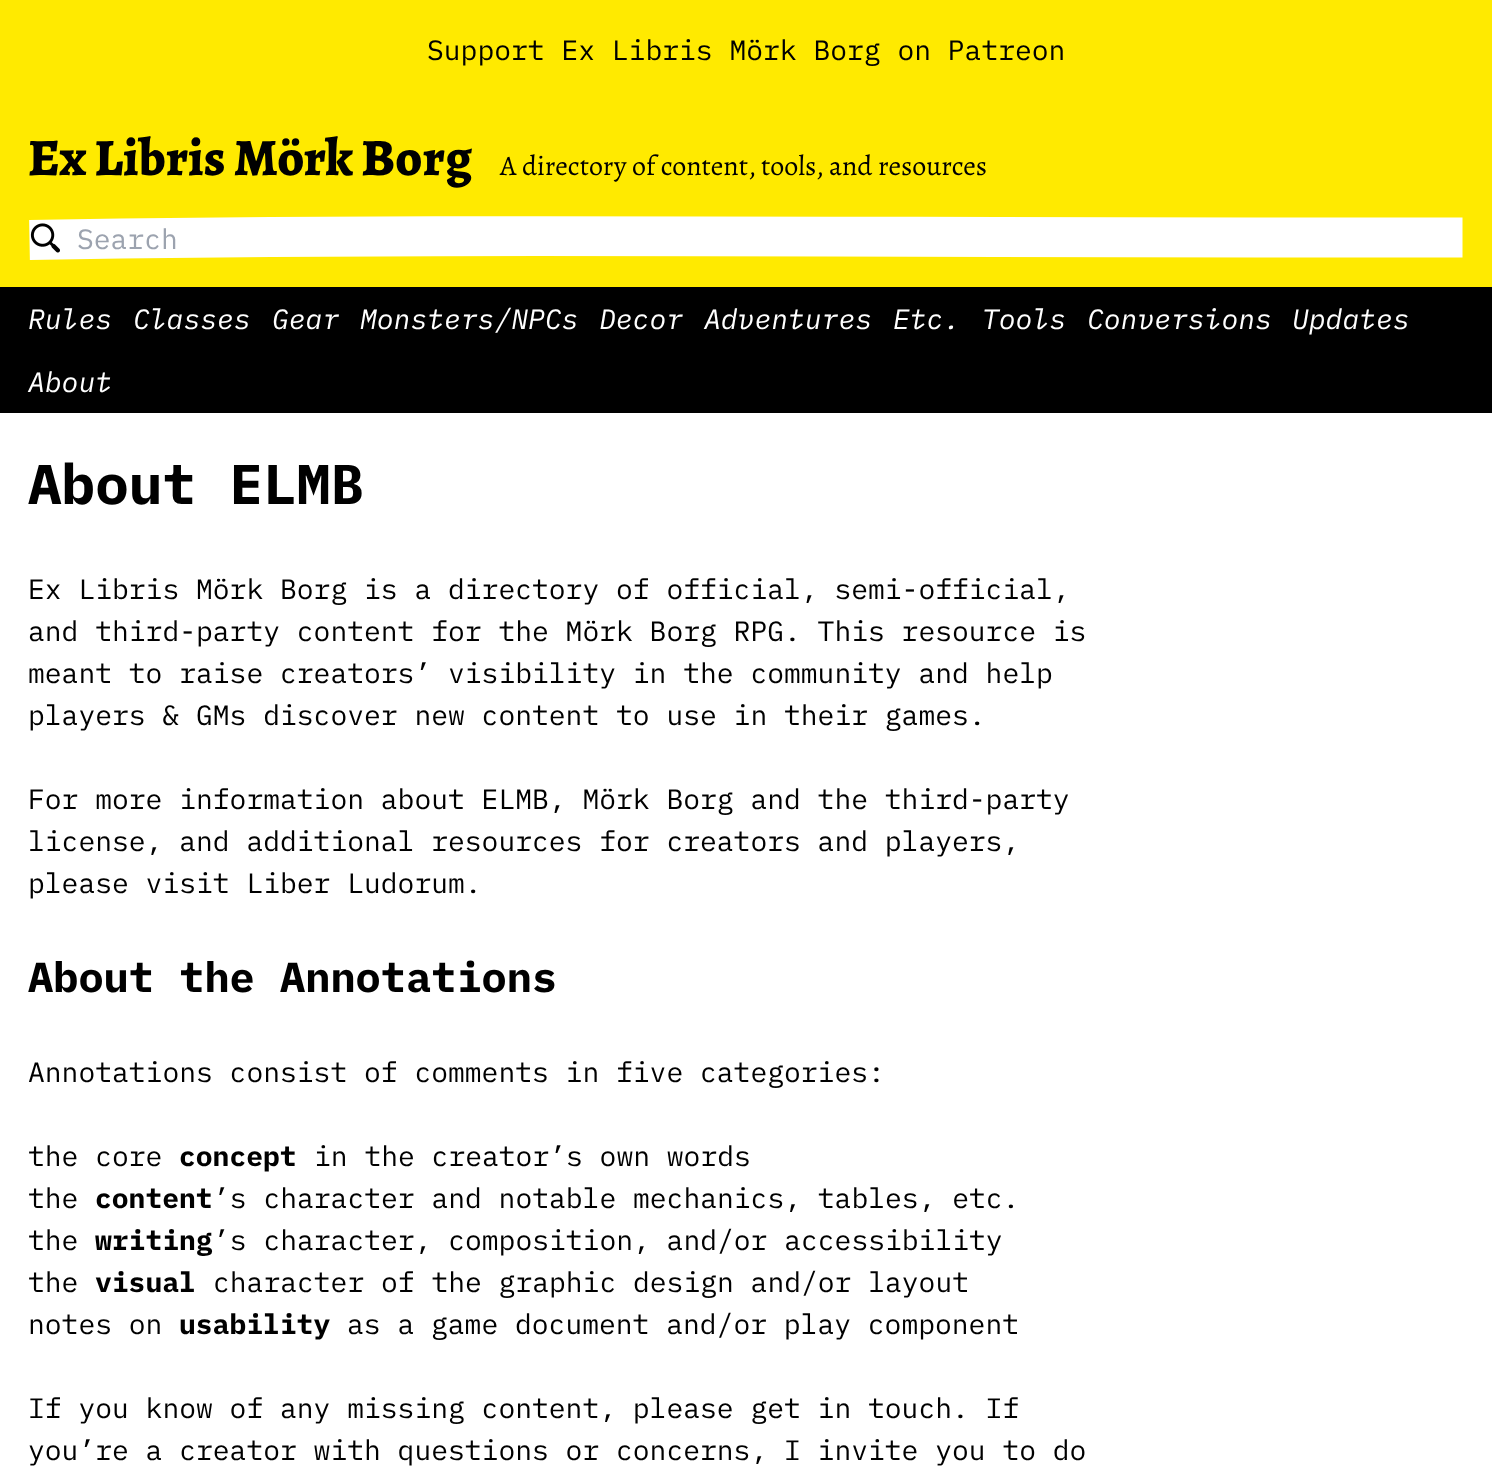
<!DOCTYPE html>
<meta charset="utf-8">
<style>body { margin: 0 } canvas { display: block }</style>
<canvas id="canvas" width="1492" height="1477"></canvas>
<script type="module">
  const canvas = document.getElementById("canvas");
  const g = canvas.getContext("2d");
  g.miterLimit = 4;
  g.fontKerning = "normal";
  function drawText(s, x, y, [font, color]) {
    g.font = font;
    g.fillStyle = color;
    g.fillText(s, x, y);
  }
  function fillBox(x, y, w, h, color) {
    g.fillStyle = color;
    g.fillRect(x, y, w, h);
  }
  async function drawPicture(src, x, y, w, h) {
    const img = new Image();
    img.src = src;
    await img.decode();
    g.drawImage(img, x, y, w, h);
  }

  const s1 = ["28px IBM Plex Mono", "#000000"];
  const s2 = ["800 52.5px Alegreya", "#000000"];
  const s3 = ["28px Alegreya", "#000000"];
  const s4 = ["28px IBM Plex Mono", "#9CA3AF"];
  const s5 = ["italic 28px IBM Plex Mono", "#FFFFFF"];
  const s6 = ["bold 56px IBM Plex Mono", "#000000"];
  const s7 = ["bold 42px IBM Plex Mono", "#000000"];
  const s8 = ["bold 28px IBM Plex Mono", "#000000"];

  fillBox(0, 0, 1492, 1477, "#FFFFFF");
  fillBox(0, 0, 1492, 287, "#FFEA00");
  drawText("Support Ex Libris Mörk Borg on Patreon", 427, 60, s1);
  drawText("Ex Libris Mörk Borg", 28, 175, s2);
  drawText("A directory of content, tools, and resources", 500, 175, s3);
  g.beginPath();
  g.moveTo(29.5, 240);
  g.bezierCurveTo(408, 233, 797.5, 237.5, 1462.5, 237.5);
  g.strokeStyle = "#FFFFFF";
  g.lineWidth = 39.9;
  g.stroke();
  await drawPicture("pic1.png", 30, 223, 30, 30);
  drawText("Search", 77, 249, s4);
  fillBox(0, 287, 1492, 126, "#000000");
  drawText("Rules", 28, 329, s5);
  drawText("Classes", 133, 329, s5);
  drawText("Gear", 272, 329, s5);
  drawText("Monsters/NPCs", 360, 329, s5);
  drawText("Decor", 599, 329, s5);
  drawText("Adventures", 704, 329, s5);
  drawText("Etc.", 893, 329, s5);
  drawText("Tools", 982, 329, s5);
  drawText("Conversions", 1087, 329, s5);
  drawText("Updates", 1292, 329, s5);
  drawText("About", 28, 392, s5);
  drawText("About ELMB", 28, 504, s6);
  drawText("Ex Libris Mörk Borg is a directory of official, semi-official,", 28, 599, s1);
  drawText("and third-party content for the Mörk Borg RPG. This resource is", 28, 641, s1);
  drawText("meant to raise creators’ visibility in the community and help", 28, 683, s1);
  drawText("players & GMs discover new content to use in their games.", 28, 725, s1);
  drawText("For more information about ELMB, Mörk Borg and the third-party", 28, 809, s1);
  drawText("license, and additional resources for creators and players,", 28, 851, s1);
  drawText("please visit Liber Ludorum.", 28, 893, s1);
  drawText("About the Annotations", 28, 992, s7);
  drawText("Annotations consist of comments in five categories:", 28, 1082, s1);
  drawText("the core", 28, 1166, s1);
  drawText("concept", 179, 1166, s8);
  drawText("in the creator’s own words", 314, 1166, s1);
  drawText("the", 28, 1208, s1);
  drawText("content", 95, 1208, s8);
  drawText("’s character and notable mechanics, tables, etc.", 213, 1208, s1);
  drawText("the", 28, 1250, s1);
  drawText("writing", 95, 1250, s8);
  drawText("’s character, composition, and/or accessibility", 213, 1250, s1);
  drawText("the", 28, 1292, s1);
  drawText("visual", 95, 1292, s8);
  drawText("character of the graphic design and/or layout", 213, 1292, s1);
  drawText("notes on", 28, 1334, s1);
  drawText("usability", 179, 1334, s8);
  drawText("as a game document and/or play component", 347, 1334, s1);
  drawText("If you know of any missing content, please get in touch. If", 28, 1418, s1);
  drawText("you’re a creator with questions or concerns, I invite you to do", 28, 1460, s1);
</script>
